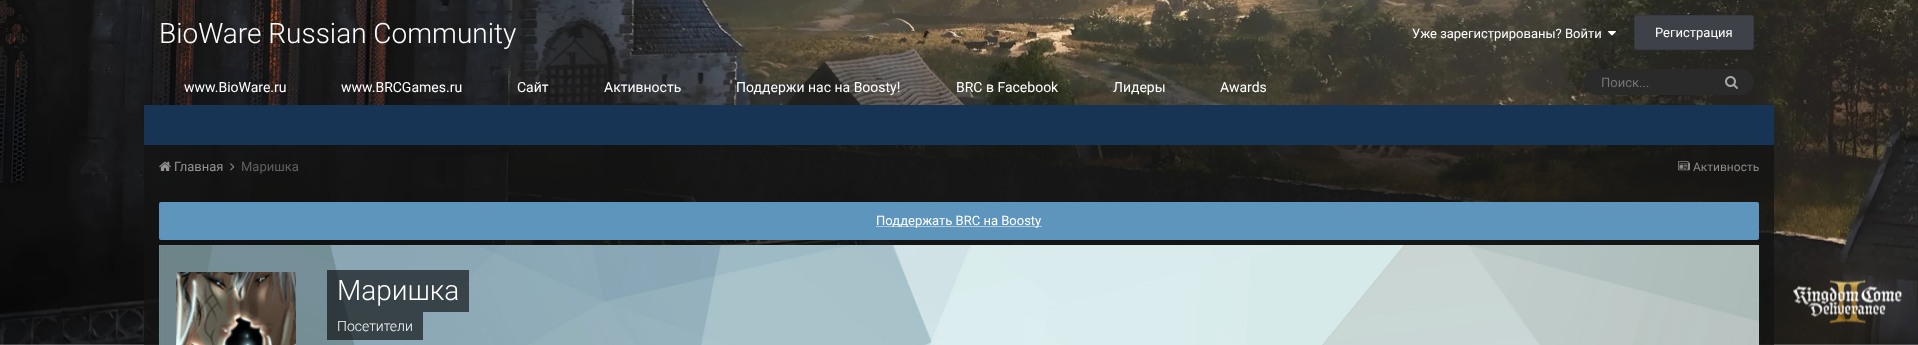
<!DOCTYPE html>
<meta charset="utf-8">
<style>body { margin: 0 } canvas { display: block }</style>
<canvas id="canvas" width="1918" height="345"></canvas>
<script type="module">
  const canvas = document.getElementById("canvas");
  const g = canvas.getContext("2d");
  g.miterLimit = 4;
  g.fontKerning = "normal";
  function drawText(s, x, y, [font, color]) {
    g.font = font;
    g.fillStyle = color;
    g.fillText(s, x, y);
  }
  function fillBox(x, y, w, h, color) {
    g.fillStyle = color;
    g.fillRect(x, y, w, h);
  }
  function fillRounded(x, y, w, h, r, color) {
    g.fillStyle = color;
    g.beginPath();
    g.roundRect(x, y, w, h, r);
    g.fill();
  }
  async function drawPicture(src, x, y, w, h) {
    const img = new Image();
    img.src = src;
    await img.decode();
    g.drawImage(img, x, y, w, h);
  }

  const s1 = ["300 28px Roboto", "#FFFFFF"];
  const s2 = ["13px Roboto", "#FFFFFF"];
  const s3 = ["14px Roboto", "#FFFFFF"];
  const s4 = ["13px Roboto", "#757575"];
  const s5 = ["13px Roboto", "#939393"];
  const s6 = ["13px Roboto", "#606060"];
  const s7 = ["12px Roboto", "#8A8989"];
  const s8 = ["300 14px Roboto", "#FFFFFF"];

  fillBox(0, 0, 1918, 345, "#FFFFFF");
  await drawPicture("pic1.png", 0, 0, 1918, 345);
  drawText("BioWare Russian Community", 159, 43, s1);
  drawText("Уже зарегистрированы? Войти", 1412, 38, s2);
  await drawPicture("pic2.png", 1608, 31, 8, 5);
  fillRounded(1634, 15, 120, 35, 3, "#3E4148");
  g.beginPath();
  g.roundRect(1634.5, 15.5, 119, 34, 2.5);
  g.strokeStyle = "rgba(0, 0, 0, 0.1)";
  g.stroke();
  drawText("Регистрация", 1655, 37, s2);
  fillBox(160, 69, 141, 36, "rgba(23, 52, 85, 0.04)");
  drawText("www.BioWare.ru", 184, 92, s3);
  fillBox(355, 69, 37, 36, "rgba(23, 52, 85, 0.04)");
  drawText("www.BRCGames.ru", 341, 92, s3);
  drawText("Сайт", 517, 92, s3);
  drawText("Активность", 604, 92, s3);
  fillBox(730, 69, 196, 36, "rgba(23, 52, 85, 0.04)");
  drawText("Поддержи нас на Boosty!", 736, 92, s3);
  fillBox(931, 69, 152, 36, "rgba(23, 52, 85, 0.04)");
  drawText("BRC в Facebook", 956, 92, s3);
  fillBox(1088, 69, 95, 33, "rgba(23, 52, 85, 0.04)");
  drawText("Лидеры", 1113, 92, s3);
  fillBox(1196, 69, 75, 36, "rgba(23, 52, 85, 0.04)");
  drawText("Awards", 1220, 92, s3);
  fillBox(144, 105, 1630, 40, "#173455");
  fillRounded(1584, 69, 170, 26, 13, "#2B2A2A");
  drawText("Поиск...", 1601, 87, s4);
  await drawPicture("pic3.png", 1725, 76, 13, 13);
  fillBox(144, 145, 1630, 200, "rgba(19, 19, 19, 0.75)");
  await drawPicture("pic4.png", 159, 161, 12, 10);
  drawText("Главная", 174, 171, s5);
  await drawPicture("pic5.png", 230, 163, 5, 8);
  drawText("Маришка", 241, 171, s6);
  await drawPicture("pic6.png", 1678, 161, 12, 10);
  drawText("Активность", 1693, 171, s7);
  fillRounded(159, 202, 1600, 38, 2, "#5E95BC");
  g.beginPath();
  g.moveTo(876.5, 226.5);
  g.lineTo(1041.5, 226.5);
  g.strokeStyle = "#FFFFFF";
  g.setLineDash([1, 1]);
  g.stroke();
  drawText("Поддержать BRC на Boosty", 876, 225, s2);
  fillBox(159, 245, 1600, 100, "#99F1FF");
  await drawPicture("pic7.png", 159, 245, 1600, 100);
  await drawPicture("pic8.png", 176, 272, 120, 73);
  fillBox(327, 270, 142, 42, "rgba(0, 0, 0, 0.6)");
  drawText("Маришка", 337, 300, s1);
  fillBox(327, 312, 96, 28, "rgba(0, 0, 0, 0.6)");
  drawText("Посетители", 337, 331, s8);
</script>
